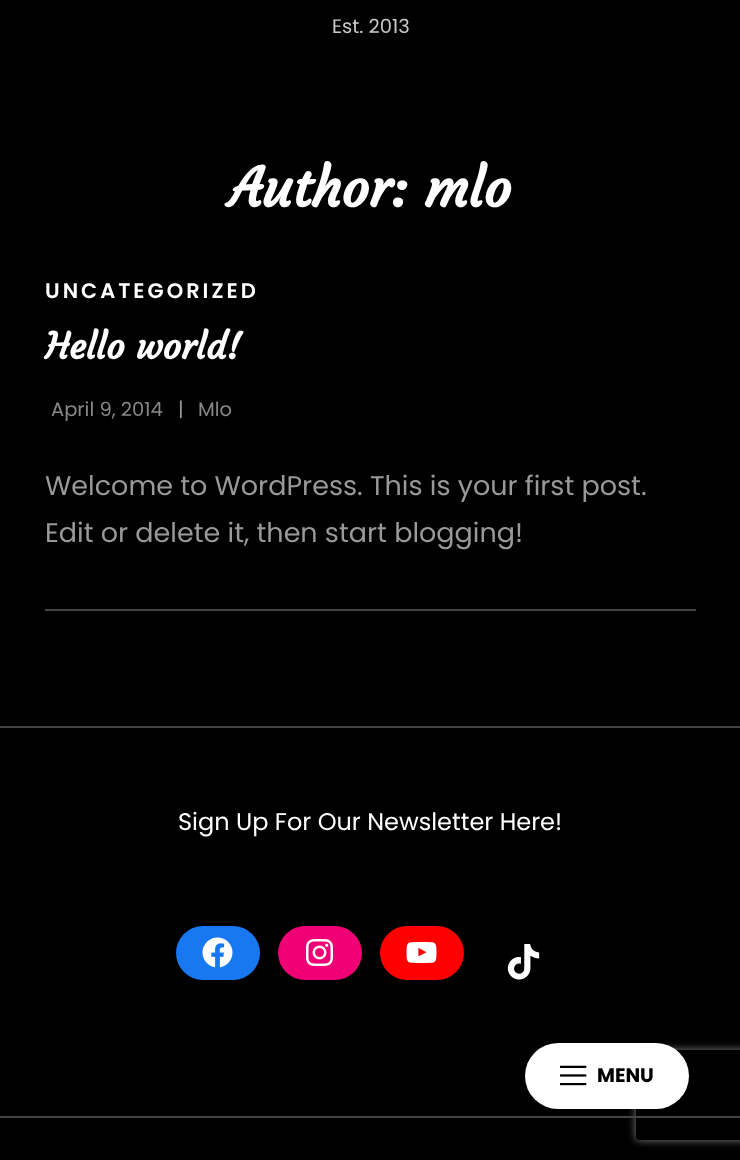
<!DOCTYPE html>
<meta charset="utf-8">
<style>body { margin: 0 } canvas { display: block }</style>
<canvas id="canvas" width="740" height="1160"></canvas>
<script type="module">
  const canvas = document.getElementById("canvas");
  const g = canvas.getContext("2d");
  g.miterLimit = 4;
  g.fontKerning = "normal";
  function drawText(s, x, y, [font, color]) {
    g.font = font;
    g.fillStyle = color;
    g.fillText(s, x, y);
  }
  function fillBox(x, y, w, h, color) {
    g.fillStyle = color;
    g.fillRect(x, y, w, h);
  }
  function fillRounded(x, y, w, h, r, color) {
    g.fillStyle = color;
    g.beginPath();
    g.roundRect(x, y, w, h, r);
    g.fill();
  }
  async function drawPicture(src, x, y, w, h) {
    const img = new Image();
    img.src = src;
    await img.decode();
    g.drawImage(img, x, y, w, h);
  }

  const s1 = ["19.5px Poppins", "#C9C9C9"];
  const s2 = ["bold 19.5px Poppins", "#000000"];
  const s3 = ["bold 54px Courgette", "#FFFFFF"];
  const s4 = ["600 21px Poppins", "#FFFFFF"];
  const s5 = ["bold 36px Courgette", "#FFFFFF"];
  const s6 = ["19.5px Poppins", "#888888"];
  const s7 = ["19.5px Poppins", "#999999"];
  const s8 = ["27px Poppins", "#999999"];
  const s9 = ["24px Poppins", "#FFFFFF"];

  fillBox(0, 0, 740, 1160, "#000000");
  drawText("Est. 2013", 332, 33, s1);
  g.save();
  g.beginPath();
  g.moveTo(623, 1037);
  g.lineTo(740, 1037);
  g.lineTo(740, 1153);
  g.lineTo(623, 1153);
  g.closePath();
  g.moveTo(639, 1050);
  g.lineTo(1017, 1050);
  g.bezierCurveTo(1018.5, 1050, 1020, 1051.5, 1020, 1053);
  g.lineTo(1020, 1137);
  g.bezierCurveTo(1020, 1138.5, 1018.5, 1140, 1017, 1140);
  g.lineTo(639, 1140);
  g.bezierCurveTo(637.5, 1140, 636, 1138.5, 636, 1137);
  g.lineTo(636, 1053);
  g.bezierCurveTo(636, 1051.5, 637.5, 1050, 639, 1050);
  g.closePath();
  g.clip("evenodd");
  g.fillStyle = "#808080";
  g.filter = "blur(4px)";
  g.beginPath();
  g.roundRect(636, 1050, 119, 90, 3);
  g.fill();
  g.filter = "none";
  g.restore();
  fillRounded(525, 1043, 164, 66, 33, "#FFFFFF");
  await drawPicture("pic1.png", 560, 1065, 27, 21);
  drawText("MENU", 597, 1082, s2);
  drawText("Author: mlo", 229, 207, s3);
  fillBox(45, 609, 651, 2, "#444444");
  g.letterSpacing = "3px";
  drawText("UNCATEGORIZED", 45, 298, s4);
  g.letterSpacing = "0px";
  drawText("Hello world!", 45, 359, s5);
  drawText("April 9, 2014", 51, 416, s6);
  drawText("|", 178, 416, s7);
  drawText("Mlo", 198, 416, s6);
  drawText("Welcome to WordPress. This is your first post.", 45, 495, s8);
  drawText("Edit or delete it, then start blogging!", 45, 542, s8);
  fillBox(0, 726, 740, 2, "#444444");
  fillBox(0, 1116, 740, 2, "#444444");
  drawText("Sign Up For Our Newsletter Here!", 178, 830, s9);
  fillRounded(176, 926, 84, 54, 27, "#1778F2");
  await drawPicture("pic2.png", 202, 937, 31, 31);
  fillRounded(278, 926, 84, 54, 27, "#F00075");
  await drawPicture("pic3.png", 306, 939, 27, 27);
  fillRounded(380, 926, 84, 54, 27, "#FF0000");
  await drawPicture("pic4.png", 406, 941, 31, 23);
  await drawPicture("pic5.png", 507, 944, 33, 36);
</script>
